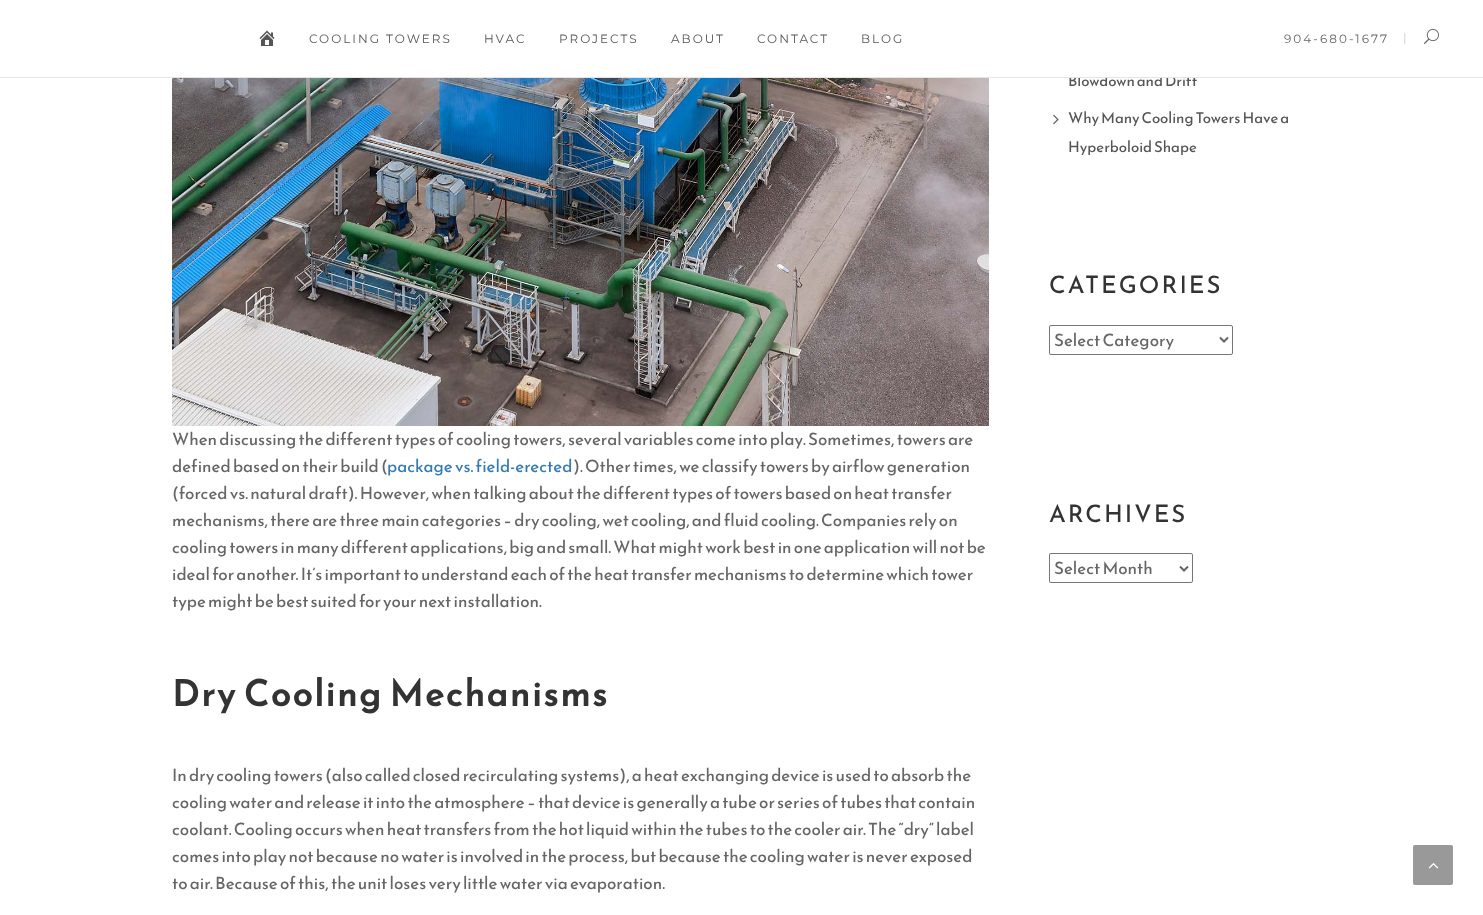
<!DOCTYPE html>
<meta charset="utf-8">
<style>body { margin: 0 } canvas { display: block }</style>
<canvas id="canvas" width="1483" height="915"></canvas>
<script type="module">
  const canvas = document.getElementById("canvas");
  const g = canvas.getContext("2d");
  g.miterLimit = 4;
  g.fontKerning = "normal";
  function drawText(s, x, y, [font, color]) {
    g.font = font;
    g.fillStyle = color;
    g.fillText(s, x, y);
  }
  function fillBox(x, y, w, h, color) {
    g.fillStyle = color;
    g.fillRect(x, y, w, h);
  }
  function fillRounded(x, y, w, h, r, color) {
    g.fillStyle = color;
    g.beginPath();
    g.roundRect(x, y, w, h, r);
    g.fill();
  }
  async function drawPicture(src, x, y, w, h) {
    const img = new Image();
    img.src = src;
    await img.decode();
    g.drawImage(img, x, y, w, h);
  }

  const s1 = ["15px Reem Kufi", "#555555"];
  const s2 = ["12px Montserrat", "#555555"];
  const s3 = ["12px Montserrat", "#666666"];
  const s4 = ["12px Montserrat", "#CCCCCC"];
  const s5 = ["24px Reem Kufi", "#333333"];
  const s6 = ["17px Reem Kufi", "#666666"];
  const s7 = ["17px Reem Kufi", "#337AB7"];
  const s8 = ["bold 36px Reem Kufi", "#333333"];

  fillBox(0, 0, 1483, 915, "#FFFFFF");
  drawText("Blowdown and Drift", 1068, 86, s1);
  fillBox(1069, 74, 123, 3, "#FFFFFF");
  fillBox(0, 77, 1483, 1, "#E5E5E5");
  await drawPicture("pic1.png", 259, 30, 16, 16);
  g.letterSpacing = "2px";
  drawText("COOLING TOWERS", 309, 43, s2);
  drawText("HVAC", 484, 43, s2);
  drawText("PROJECTS", 559, 43, s2);
  drawText("ABOUT", 671, 43, s2);
  drawText("CONTACT", 757, 43, s2);
  drawText("BLOG", 861, 43, s2);
  drawText("904-680-1677", 1284, 43, s3);
  drawText("|", 1403, 42, s4);
  await drawPicture("pic2.png", 1424, 28, 15, 16);
  await drawPicture("pic3.png", 1053, 114, 6, 11);
  g.letterSpacing = "0px";
  drawText("Why Many Cooling Towers Have a", 1068, 123, s1);
  drawText("Hyperboloid Shape", 1068, 152, s1);
  g.letterSpacing = "2px";
  drawText("CATEGORIES", 1049, 293, s5);
  g.beginPath();
  g.roundRect(1049.5, 325.5, 183, 29, 1.5);
  g.strokeStyle = "#767676";
  g.stroke();
  g.beginPath();
  g.moveTo(1220, 337.5);
  g.lineTo(1224, 341.5);
  g.lineTo(1228, 337.5);
  g.strokeStyle = "#666666";
  g.lineWidth = 2;
  g.stroke();
  g.letterSpacing = "0px";
  drawText("Select Category", 1054, 346, s6);
  g.letterSpacing = "2px";
  drawText("ARCHIVES", 1049, 522, s5);
  g.beginPath();
  g.roundRect(1049.5, 553.5, 143, 29, 1.5);
  g.strokeStyle = "#767676";
  g.lineWidth = 1;
  g.stroke();
  g.beginPath();
  g.moveTo(1180, 566.5);
  g.lineTo(1184, 570.5);
  g.lineTo(1188, 566.5);
  g.strokeStyle = "#666666";
  g.lineWidth = 2;
  g.stroke();
  g.letterSpacing = "0px";
  drawText("Select Month", 1054, 574, s6);
  await drawPicture("pic4.png", 172, 78, 817, 348);
  drawText("When discussing the different types of cooling towers, several variables come into play. Sometimes, towers are", 172, 445, s6);
  drawText("defined based on their build (", 172, 472, s6);
  drawText("package vs. field-erected", 387, 472, s7);
  drawText("). Other times, we classify towers by airflow generation", 573, 472, s6);
  drawText("(forced vs. natural draft). However, when talking about the different types of towers based on heat transfer", 172, 499, s6);
  drawText("mechanisms, there are three main categories – dry cooling, wet cooling, and fluid cooling. Companies rely on", 172, 526, s6);
  drawText("cooling towers in many different applications, big and small. What might work best in one application will not be", 172, 553, s6);
  drawText("ideal for another. It’s important to understand each of the heat transfer mechanisms to determine which tower", 172, 580, s6);
  drawText("type might be best suited for your next installation.", 172, 607, s6);
  g.letterSpacing = "2px";
  drawText("Dry Cooling Mechanisms", 172, 706, s8);
  g.letterSpacing = "0px";
  drawText("In dry cooling towers (also called closed recirculating systems), a heat exchanging device is used to absorb the", 172, 781, s6);
  drawText("cooling water and release it into the atmosphere – that device is generally a tube or series of tubes that contain", 172, 808, s6);
  drawText("coolant. Cooling occurs when heat transfers from the hot liquid within the tubes to the cooler air. The “dry” label", 172, 835, s6);
  drawText("comes into play not because no water is involved in the process, but because the cooling water is never exposed", 172, 862, s6);
  drawText("to air. Because of this, the unit loses very little water via evaporation.", 172, 889, s6);
  fillRounded(1413, 845, 40, 40, 2, "#999999");
  await drawPicture("pic5.png", 1428, 863, 11, 6);
</script>
